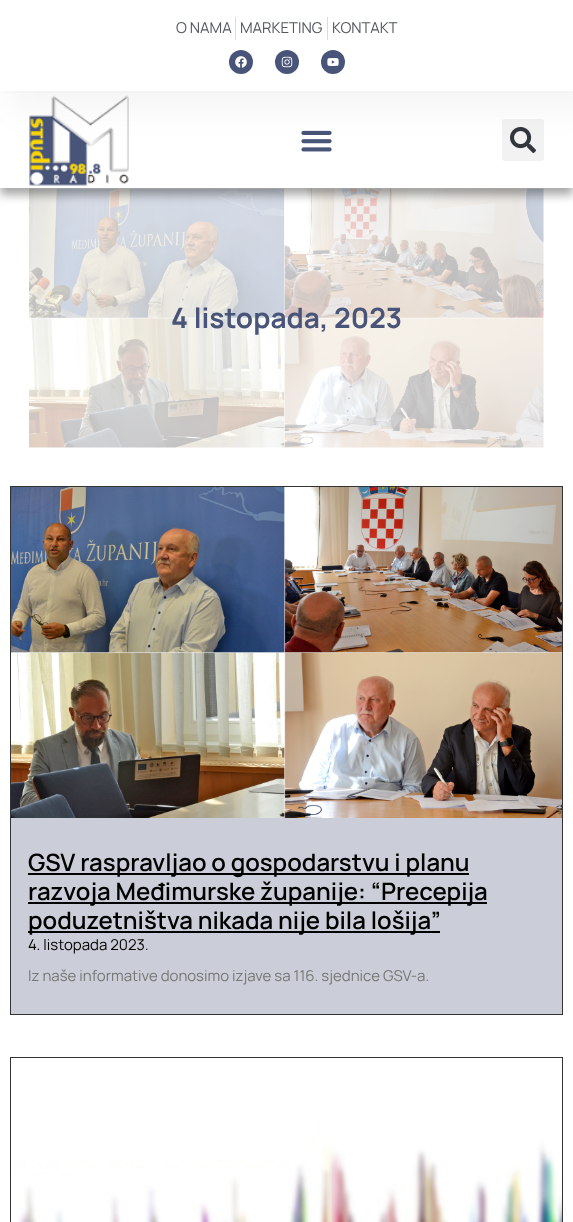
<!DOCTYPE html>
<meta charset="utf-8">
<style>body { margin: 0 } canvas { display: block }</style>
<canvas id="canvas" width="573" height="1222"></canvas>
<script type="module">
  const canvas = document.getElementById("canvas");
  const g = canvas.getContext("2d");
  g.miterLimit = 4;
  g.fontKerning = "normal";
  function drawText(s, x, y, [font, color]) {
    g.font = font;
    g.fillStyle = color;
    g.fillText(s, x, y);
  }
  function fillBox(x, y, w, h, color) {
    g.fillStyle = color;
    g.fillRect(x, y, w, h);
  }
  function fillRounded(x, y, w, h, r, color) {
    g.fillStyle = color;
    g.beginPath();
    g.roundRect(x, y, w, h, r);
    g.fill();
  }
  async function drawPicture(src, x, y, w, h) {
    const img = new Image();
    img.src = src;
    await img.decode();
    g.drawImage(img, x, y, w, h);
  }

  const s1 = ["15px Manrope", "#54595F"];
  const s2 = ["bold 28px Manrope", "#495578"];
  const s3 = ["600 24px Manrope", "#000000"];
  const s4 = ["15px Manrope", "#000000"];
  const s5 = ["15px Manrope", "#777777"];

  fillBox(0, 0, 573, 1222, "#FFFFFF");
  await drawPicture("pic7.png", 29, 188, 515, 260);
  g.save();
  g.beginPath();
  g.moveTo(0, 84);
  g.lineTo(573, 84);
  g.lineTo(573, 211);
  g.lineTo(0, 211);
  g.closePath();
  g.moveTo(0, 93);
  g.lineTo(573, 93);
  g.lineTo(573, 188);
  g.lineTo(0, 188);
  g.closePath();
  g.clip("evenodd");
  g.fillStyle = "rgba(0, 0, 0, 0.34)";
  g.filter = "blur(5px)";
  g.beginPath();
  g.rect(0, 100, 573, 95);
  g.fill();
  g.filter = "none";
  g.restore();
  await drawPicture("pic4.png", 29, 95, 100, 91);
  await drawPicture("pic5.png", 301, 130, 31, 22);
  fillRounded(502, 119, 42, 42, 3, "#F2F2F2");
  await drawPicture("pic6.png", 510, 127, 26, 26);
  g.fillStyle = "rgba(0, 0, 0, 0.04)";
  g.filter = "blur(15px)";
  g.beginPath();
  g.rect(10, 10, 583, 101);
  g.fill();
  g.filter = "none";
  fillBox(0, 0, 573, 91, "#FFFFFF");
  drawText("O NAMA", 176, 33, s1);
  fillBox(235, 17, 1, 23, "#DDDDDD");
  drawText("MARKETING", 240, 33, s1);
  fillBox(327, 17, 1, 23, "#DDDDDD");
  drawText("KONTAKT", 332, 33, s1);
  g.fillStyle = "#495578";
  g.beginPath();
  g.arc(241, 62, 12, 0, Math.PI * 2);
  g.fill();
  await drawPicture("pic1.png", 235, 56, 12, 12);
  g.beginPath();
  g.arc(287, 62, 12, 0, Math.PI * 2);
  g.fill();
  await drawPicture("pic2.png", 281, 56, 12, 12);
  g.beginPath();
  g.arc(333, 62, 12, 0, Math.PI * 2);
  g.fill();
  await drawPicture("pic3.png", 327, 58, 12, 8);
  drawText("4 listopada, 2023", 171, 328, s2);
  fillBox(11, 818, 551, 196, "#CBCED8");
  g.strokeStyle = "#333333";
  g.strokeRect(10.5, 486.5, 552, 528);
  await drawPicture("pic8.png", 11, 487, 551, 331);
  fillBox(28, 873, 441, 2, "#000000");
  drawText("GSV raspravljao o gospodarstvu i planu", 28, 871, s3);
  fillBox(28, 902, 459, 2, "#000000");
  drawText("razvoja Međimurske županije: “Precepija", 28, 900, s3);
  fillBox(28, 931, 412, 2, "#000000");
  drawText("poduzetništva nikada nije bila lošija”", 28, 929, s3);
  drawText("4. listopada 2023.", 28, 950, s4);
  drawText("Iz naše informative donosimo izjave sa 116. sjednice GSV-a.", 28, 981, s5);
  g.strokeRect(10.5, 1057.5, 552, 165);
  await drawPicture("pic9.png", 11, 1058, 551, 164);
</script>
